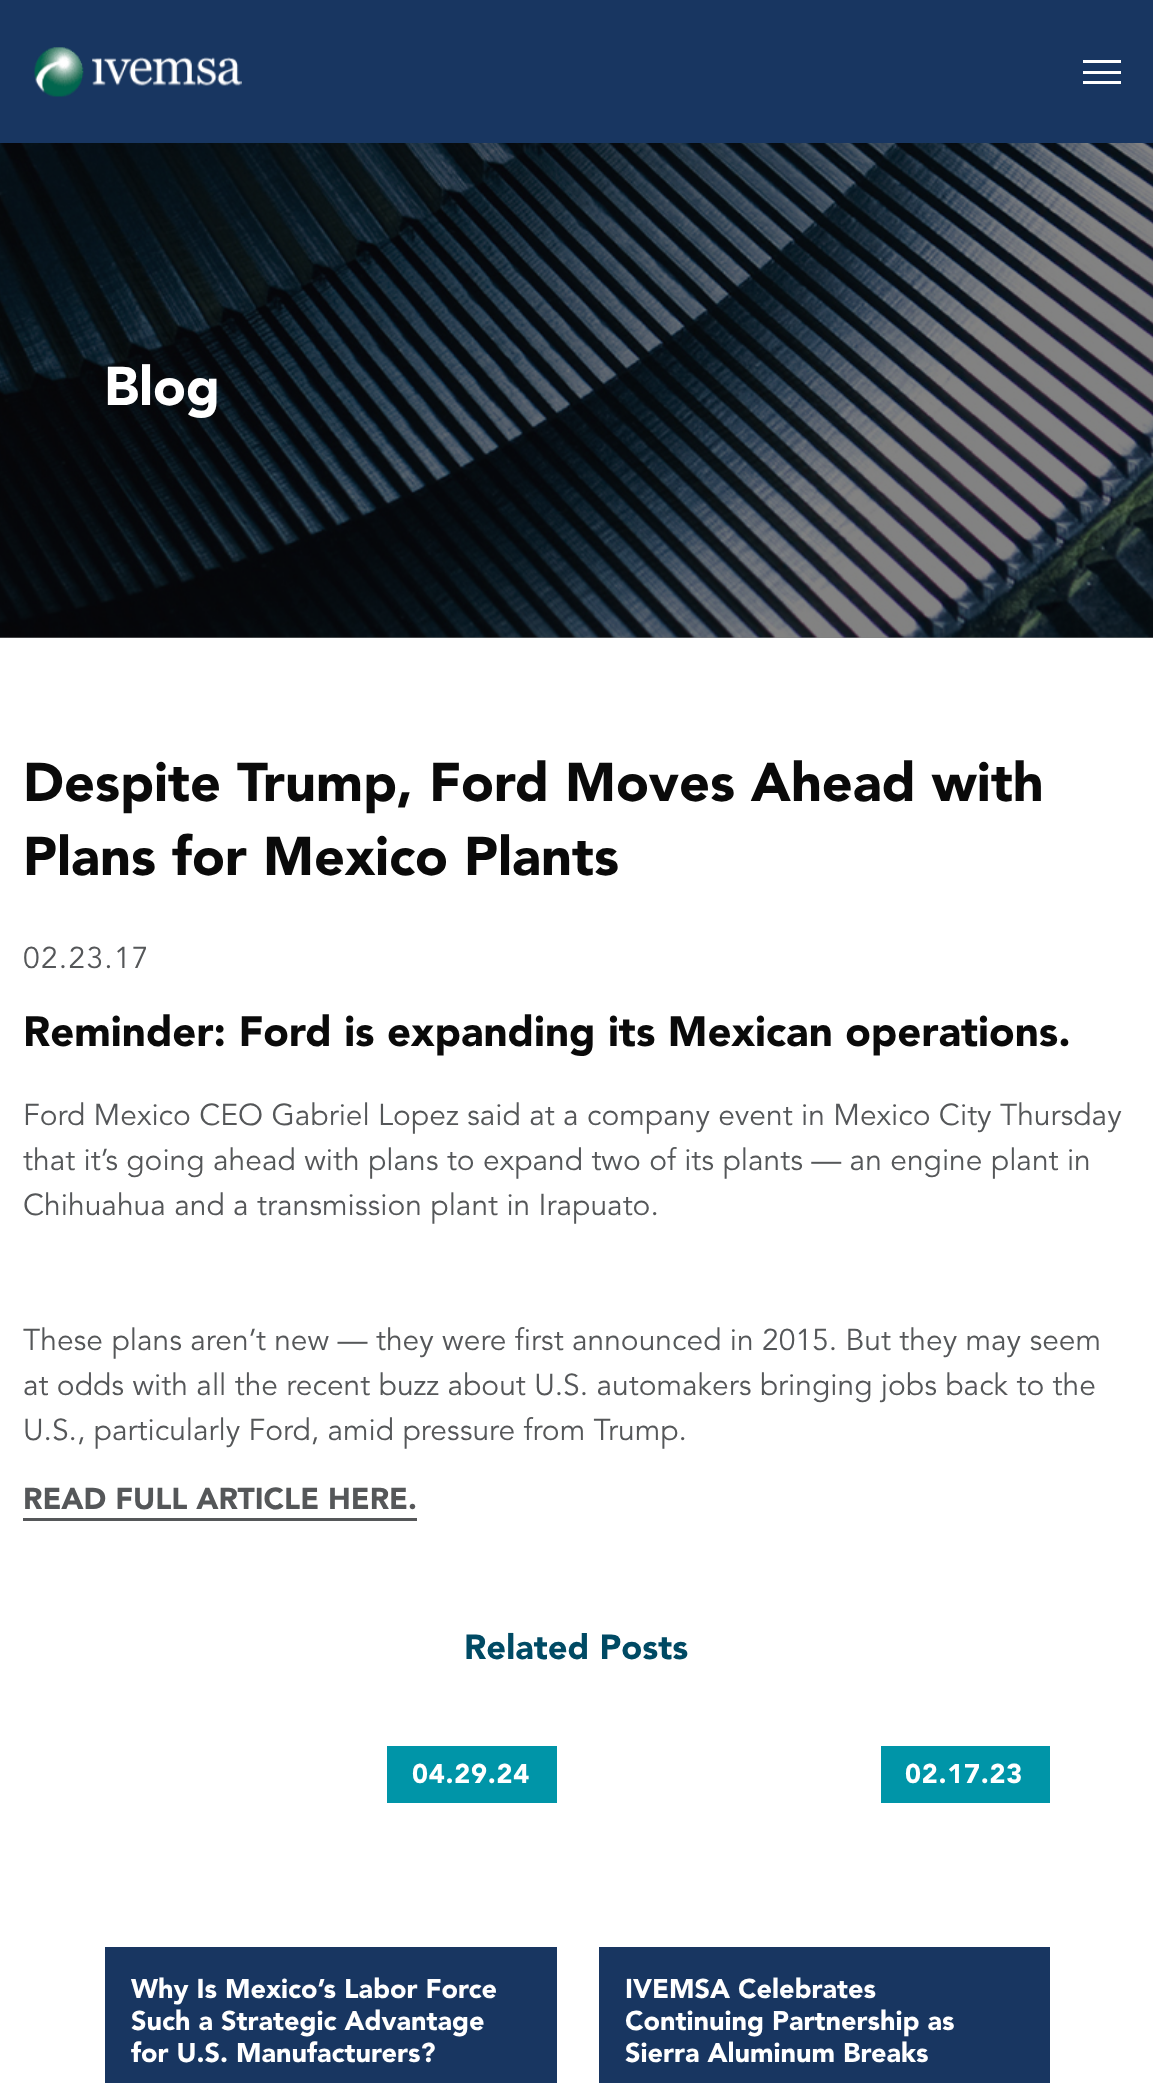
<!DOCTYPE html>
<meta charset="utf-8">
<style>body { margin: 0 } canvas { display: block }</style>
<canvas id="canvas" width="1153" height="2083"></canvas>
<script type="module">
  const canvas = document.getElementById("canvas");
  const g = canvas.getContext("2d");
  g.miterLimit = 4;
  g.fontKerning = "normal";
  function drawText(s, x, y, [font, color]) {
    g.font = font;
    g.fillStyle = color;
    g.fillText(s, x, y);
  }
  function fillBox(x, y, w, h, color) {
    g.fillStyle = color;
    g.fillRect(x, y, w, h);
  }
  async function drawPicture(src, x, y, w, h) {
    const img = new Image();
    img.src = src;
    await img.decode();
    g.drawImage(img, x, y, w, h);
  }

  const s1 = ["900 54px Avenir", "#FFFFFF"];
  const s2 = ["900 54px Avenir", "#0A0A0A"];
  const s3 = ["30px Avenir", "#555759"];
  const s4 = ["900 42px Avenir", "#0A0A0A"];
  const s5 = ["900 30px Avenir", "#555759"];
  const s6 = ["900 34.5px Avenir", "#004A64"];
  const s7 = ["900 27px Avenir", "#FFFFFF"];

  fillBox(0, 0, 1153, 2083, "#FFFFFF");
  fillBox(0, 637, 1153, 1, "#828282");
  fillBox(0, 0, 1153, 143, "#183661");
  await drawPicture("pic1.png", 34, 47, 208, 50);
  fillBox(1083, 60, 38, 3, "#FFFFFF");
  fillBox(1083, 71, 38, 3, "#FFFFFF");
  fillBox(1083, 81, 38, 3, "#FFFFFF");
  await drawPicture("pic2.png", 0, 143, 1153, 495);
  drawText("Blog", 104, 405, s1);
  drawText("Despite Trump, Ford Moves Ahead with", 23, 801, s2);
  drawText("Plans for Mexico Plants", 23, 875, s2);
  g.letterSpacing = "1.25px";
  drawText("02.23.17", 23, 968, s3);
  g.letterSpacing = "0px";
  drawText("Reminder: Ford is expanding its Mexican operations.", 23, 1046, s4);
  drawText("Ford Mexico CEO Gabriel Lopez said at a company event in Mexico City Thursday", 23, 1125, s3);
  drawText("that it’s going ahead with plans to expand two of its plants — an engine plant in", 23, 1170, s3);
  drawText("Chihuahua and a transmission plant in Irapuato.", 23, 1215, s3);
  drawText("These plans aren’t new — they were first announced in 2015. But they may seem", 23, 1350, s3);
  drawText("at odds with all the recent buzz about U.S. automakers bringing jobs back to the", 23, 1395, s3);
  drawText("U.S., particularly Ford, amid pressure from Trump.", 23, 1440, s3);
  drawText("READ FULL ARTICLE HERE.", 23, 1509, s5);
  fillBox(23, 1518, 394, 3, "#555759");
  drawText("Related Posts", 464, 1659, s6);
  fillBox(387, 1746, 170, 57, "#0095A8");
  g.letterSpacing = "0.75px";
  drawText("04.29.24", 412, 1783, s7);
  fillBox(105, 1947, 452, 136, "#183661");
  g.letterSpacing = "0px";
  drawText("Why Is Mexico’s Labor Force", 131, 1998, s7);
  drawText("Such a Strategic Advantage", 131, 2030, s7);
  drawText("for U.S. Manufacturers?", 131, 2062, s7);
  fillBox(881, 1746, 169, 57, "#0095A8");
  g.letterSpacing = "0.75px";
  drawText("02.17.23", 905, 1783, s7);
  fillBox(599, 1947, 451, 136, "#183661");
  g.letterSpacing = "0px";
  drawText("IVEMSA Celebrates", 625, 1998, s7);
  drawText("Continuing Partnership as", 625, 2030, s7);
  drawText("Sierra Aluminum Breaks", 625, 2062, s7);
</script>
